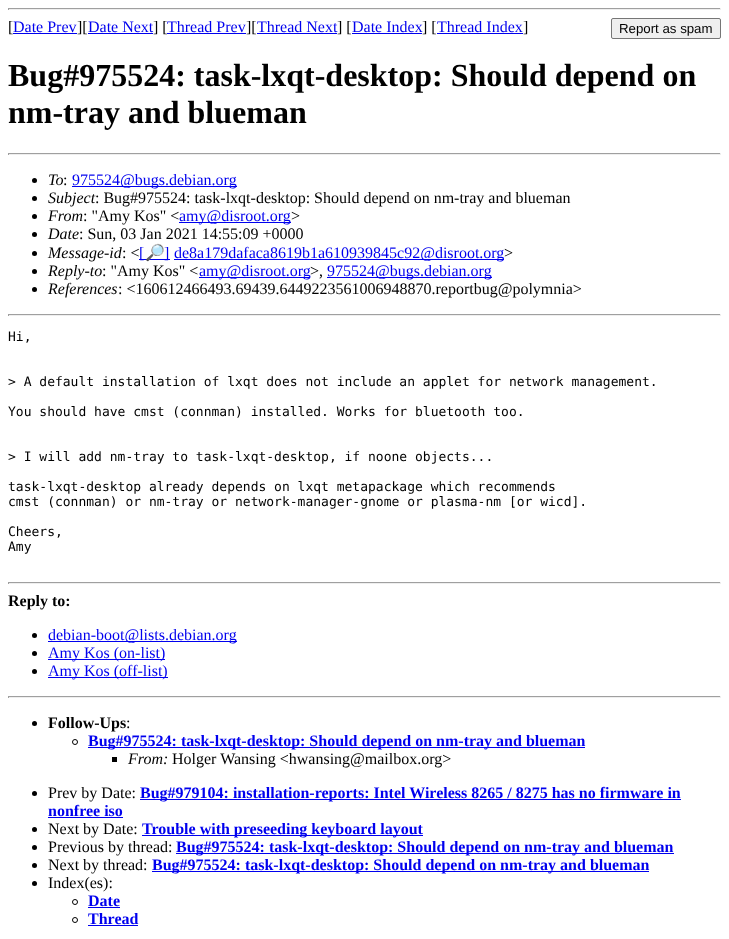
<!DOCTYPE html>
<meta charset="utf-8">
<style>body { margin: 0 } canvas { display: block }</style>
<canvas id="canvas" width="729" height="939"></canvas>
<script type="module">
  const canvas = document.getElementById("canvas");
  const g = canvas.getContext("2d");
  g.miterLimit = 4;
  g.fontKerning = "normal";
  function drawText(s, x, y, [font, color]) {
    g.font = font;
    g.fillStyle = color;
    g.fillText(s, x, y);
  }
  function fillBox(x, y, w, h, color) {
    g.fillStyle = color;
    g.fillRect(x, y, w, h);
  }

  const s1 = ["16px Liberation Serif", "#000000"];
  const s2 = ["16px Liberation Serif", "#0000EE"];
  const s3 = ["13.25px Liberation Sans", "#000000"];
  const s4 = ["bold 32px Liberation Serif", "#000000"];
  const s5 = ["italic 16px Liberation Serif", "#000000"];
  const s6 = ["16px Noto Color Emoji", "#0000EE"];
  const s7 = ["13px DejaVu Sans Mono", "#000000"];
  const s8 = ["bold 16px Liberation Serif", "#000000"];
  const s9 = ["bold 16px Liberation Serif", "#0000EE"];

  fillBox(0, 0, 729, 939, "#FFFFFF");
  fillBox(8, 8, 713, 1, "#9F9F9F");
  fillBox(720, 8, 1, 2, "#EEEEEE");
  fillBox(8, 9, 713, 1, "#EEEEEE");
  fillBox(8, 8, 1, 2, "#9F9F9F");
  drawText("[", 8, 32, s1);
  drawText("Date Prev", 13, 32, s2);
  fillBox(13, 33, 64, 1, "#0000EE");
  drawText("][", 77, 32, s1);
  drawText("Date Next", 88, 32, s2);
  fillBox(88, 33, 65, 1, "#0000EE");
  drawText("] [", 153, 32, s1);
  drawText("Thread Prev", 167, 32, s2);
  fillBox(167, 33, 79, 1, "#0000EE");
  drawText("][", 246, 32, s1);
  drawText("Thread Next", 257, 32, s2);
  fillBox(257, 33, 80, 1, "#0000EE");
  drawText("] [", 337, 32, s1);
  drawText("Date Index", 352, 32, s2);
  fillBox(352, 33, 70, 1, "#0000EE");
  drawText("] [", 422, 32, s1);
  drawText("Thread Index", 437, 32, s2);
  fillBox(437, 33, 86, 1, "#0000EE");
  drawText("]", 523, 32, s1);
  g.fillStyle = "#EFEFEF";
  g.beginPath();
  g.roundRect(611.5, 18.5, 109, 20, 1.5);
  g.fill();
  g.strokeStyle = "#767676";
  g.stroke();
  drawText("Report as spam", 619, 33, s3);
  drawText("Bug#975524: task-lxqt-desktop: Should depend on", 8, 86, s4);
  drawText("nm-tray and blueman", 8, 123, s4);
  fillBox(8, 153, 713, 1, "#9F9F9F");
  fillBox(720, 153, 1, 2, "#EEEEEE");
  fillBox(8, 154, 713, 1, "#EEEEEE");
  fillBox(8, 153, 1, 2, "#9F9F9F");
  g.fillStyle = "#000000";
  g.beginPath();
  g.arc(34.5, 180.5, 2.5, 0, Math.PI * 2);
  g.fill();
  drawText("To", 48, 185, s5);
  drawText(":", 63, 185, s1);
  fillBox(72, 186, 165, 1, "#0000EE");
  drawText("975524@bugs.debian.org", 72, 185, s2);
  g.fillStyle = "#000000";
  g.beginPath();
  g.arc(34.5, 198.5, 2.5, 0, Math.PI * 2);
  g.fill();
  drawText("Subject", 48, 203, s5);
  drawText(": Bug#975524: task-lxqt-desktop: Should depend on nm-tray and blueman", 95, 203, s1);
  g.beginPath();
  g.arc(34.5, 216.5, 2.5, 0, Math.PI * 2);
  g.fill();
  drawText("From", 48, 221, s5);
  drawText(": \"Amy Kos\" <", 83, 221, s1);
  fillBox(179, 222, 112, 1, "#0000EE");
  drawText("amy@disroot.org", 179, 221, s2);
  drawText(">", 291, 221, s1);
  g.beginPath();
  g.arc(34.5, 234.5, 2.5, 0, Math.PI * 2);
  g.fill();
  drawText("Date", 48, 239, s5);
  drawText(": Sun, 03 Jan 2021 14:55:09 +0000", 79, 239, s1);
  g.beginPath();
  g.arc(34.5, 253.5, 2.5, 0, Math.PI * 2);
  g.fill();
  drawText("Message-id", 48, 258, s5);
  drawText(": <", 122, 258, s1);
  fillBox(139, 259, 31, 1, "#0000EE");
  drawText("[", 139, 258, s2);
  drawText("🔎", 145, 258, s6);
  drawText("]", 164, 258, s2);
  fillBox(174, 259, 330, 1, "#0000EE");
  drawText("de8a179dafaca8619b1a610939845c92@disroot.org", 174, 258, s2);
  drawText(">", 504, 258, s1);
  g.beginPath();
  g.arc(34.5, 271.5, 2.5, 0, Math.PI * 2);
  g.fill();
  drawText("Reply-to", 48, 276, s5);
  drawText(": \"Amy Kos\" <", 102, 276, s1);
  fillBox(199, 277, 111, 1, "#0000EE");
  drawText("amy@disroot.org", 199, 276, s2);
  drawText(">,", 310, 276, s1);
  fillBox(327, 277, 165, 1, "#0000EE");
  drawText("975524@bugs.debian.org", 327, 276, s2);
  g.fillStyle = "#000000";
  g.beginPath();
  g.arc(34.5, 289.5, 2.5, 0, Math.PI * 2);
  g.fill();
  drawText("References", 48, 294, s5);
  drawText(": <160612466493.69439.6449223561006948870.reportbug@polymnia>", 118, 294, s1);
  fillBox(8, 314, 713, 1, "#9F9F9F");
  fillBox(720, 314, 1, 2, "#EEEEEE");
  fillBox(8, 315, 713, 1, "#EEEEEE");
  fillBox(8, 314, 1, 2, "#9F9F9F");
  drawText("Hi,", 8, 341, s7);
  drawText("> A default installation of lxqt does not include an applet for network management.", 8, 386, s7);
  drawText("You should have cmst (connman) installed. Works for bluetooth too.", 8, 416, s7);
  drawText("> I will add nm-tray to task-lxqt-desktop, if noone objects...", 8, 461, s7);
  drawText("task-lxqt-desktop already depends on lxqt metapackage which recommends", 8, 491, s7);
  drawText("cmst (connman) or nm-tray or network-manager-gnome or plasma-nm [or wicd].", 8, 506, s7);
  drawText("Cheers,", 8, 536, s7);
  drawText("Amy", 8, 551, s7);
  fillBox(8, 582, 713, 1, "#9F9F9F");
  fillBox(720, 582, 1, 2, "#EEEEEE");
  fillBox(8, 583, 713, 1, "#EEEEEE");
  fillBox(8, 582, 1, 2, "#9F9F9F");
  drawText("Reply to:", 8, 606, s8);
  g.beginPath();
  g.arc(34.5, 635.5, 2.5, 0, Math.PI * 2);
  g.fill();
  fillBox(48, 641, 189, 1, "#0000EE");
  drawText("debian-boot@lists.debian.org", 48, 640, s2);
  g.fillStyle = "#000000";
  g.beginPath();
  g.arc(34.5, 653.5, 2.5, 0, Math.PI * 2);
  g.fill();
  fillBox(48, 659, 117, 1, "#0000EE");
  drawText("Amy Kos (on-list)", 48, 658, s2);
  g.fillStyle = "#000000";
  g.beginPath();
  g.arc(34.5, 671.5, 2.5, 0, Math.PI * 2);
  g.fill();
  fillBox(48, 677, 120, 1, "#0000EE");
  drawText("Amy Kos (off-list)", 48, 676, s2);
  fillBox(8, 696, 713, 1, "#9F9F9F");
  fillBox(720, 696, 1, 2, "#EEEEEE");
  fillBox(8, 697, 713, 1, "#EEEEEE");
  fillBox(8, 696, 1, 2, "#9F9F9F");
  g.fillStyle = "#000000";
  g.beginPath();
  g.arc(34.5, 723.5, 2.5, 0, Math.PI * 2);
  g.fill();
  drawText("Follow-Ups", 48, 728, s8);
  drawText(":", 126, 728, s1);
  g.beginPath();
  g.arc(75, 742, 2.5, 0, Math.PI * 2);
  g.strokeStyle = "#000000";
  g.stroke();
  fillBox(88, 747, 497, 1, "#0000EE");
  drawText("Bug#975524: task-lxqt-desktop: Should depend on nm-tray and blueman", 88, 746, s9);
  fillBox(112, 757, 5, 5, "#000000");
  drawText("From:", 128, 764, s5);
  drawText("Holger Wansing <hwansing@mailbox.org>", 172, 764, s1);
  g.beginPath();
  g.arc(34.5, 793.5, 2.5, 0, Math.PI * 2);
  g.fill();
  drawText("Prev by Date:", 48, 798, s1);
  fillBox(140, 799, 541, 1, "#0000EE");
  drawText("Bug#979104: installation-reports: Intel Wireless 8265 / 8275 has no firmware in", 140, 798, s9);
  drawText("nonfree iso", 48, 816, s9);
  fillBox(48, 817, 75, 1, "#0000EE");
  g.fillStyle = "#000000";
  g.beginPath();
  g.arc(34.5, 829.5, 2.5, 0, Math.PI * 2);
  g.fill();
  drawText("Next by Date:", 48, 834, s1);
  fillBox(142, 835, 281, 1, "#0000EE");
  drawText("Trouble with preseeding keyboard layout", 142, 834, s9);
  g.fillStyle = "#000000";
  g.beginPath();
  g.arc(34.5, 847.5, 2.5, 0, Math.PI * 2);
  g.fill();
  drawText("Previous by thread:", 48, 852, s1);
  fillBox(176, 853, 498, 1, "#0000EE");
  drawText("Bug#975524: task-lxqt-desktop: Should depend on nm-tray and blueman", 176, 852, s9);
  g.fillStyle = "#000000";
  g.beginPath();
  g.arc(34.5, 865.5, 2.5, 0, Math.PI * 2);
  g.fill();
  drawText("Next by thread:", 48, 870, s1);
  fillBox(152, 871, 497, 1, "#0000EE");
  drawText("Bug#975524: task-lxqt-desktop: Should depend on nm-tray and blueman", 152, 870, s9);
  g.fillStyle = "#000000";
  g.beginPath();
  g.arc(34.5, 883.5, 2.5, 0, Math.PI * 2);
  g.fill();
  drawText("Index(es):", 48, 888, s1);
  g.beginPath();
  g.arc(75, 902, 2.5, 0, Math.PI * 2);
  g.stroke();
  drawText("Date", 88, 906, s9);
  fillBox(88, 907, 32, 1, "#0000EE");
  g.beginPath();
  g.arc(75, 920, 2.5, 0, Math.PI * 2);
  g.stroke();
  drawText("Thread", 88, 924, s9);
  fillBox(88, 925, 50, 1, "#0000EE");
</script>
